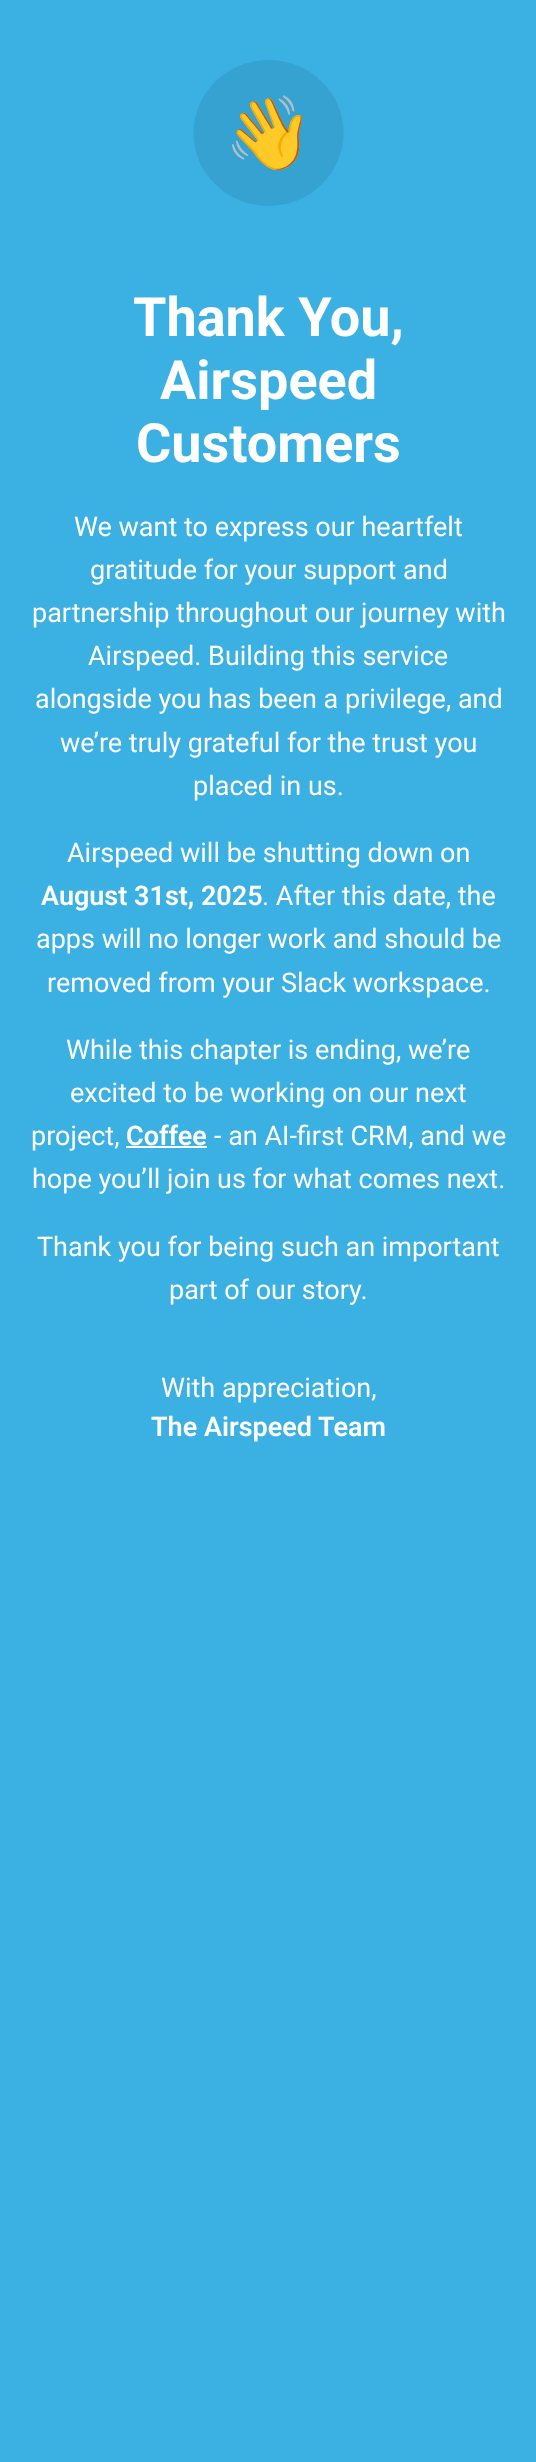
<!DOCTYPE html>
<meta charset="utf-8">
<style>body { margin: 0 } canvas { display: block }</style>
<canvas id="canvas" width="536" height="2462"></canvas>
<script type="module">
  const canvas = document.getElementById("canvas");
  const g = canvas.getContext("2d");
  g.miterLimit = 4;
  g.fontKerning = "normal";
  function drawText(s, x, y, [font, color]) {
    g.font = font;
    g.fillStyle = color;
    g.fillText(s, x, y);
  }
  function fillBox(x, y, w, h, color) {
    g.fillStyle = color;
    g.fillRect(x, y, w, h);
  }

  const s1 = ["72px Noto Color Emoji", "#FFFFFF"];
  const s2 = ["bold 54px Roboto", "#FFFFFF"];
  const s3 = ["27px Roboto", "#FFFFFF"];
  const s4 = ["600 27px Roboto", "#FFFFFF"];

  fillBox(0, 0, 536, 2462, "#3BB0E3");
  g.fillStyle = "#36A2D1";
  g.beginPath();
  g.ellipse(268.5, 133, 75, 73, 0, 0, Math.PI * 2);
  g.fill();
  drawText("👋", 224, 158, s1);
  drawText("Thank You,", 133, 336, s2);
  drawText("Airspeed", 160, 399, s2);
  drawText("Customers", 136, 462, s2);
  drawText("We want to express our heartfelt", 74, 536, s3);
  drawText("gratitude for your support and", 90, 579, s3);
  drawText("partnership throughout our journey with", 32, 622, s3);
  drawText("Airspeed. Building this service", 88, 665, s3);
  drawText("alongside you has been a privilege, and", 35, 708, s3);
  drawText("we’re truly grateful for the trust you", 60, 752, s3);
  drawText("placed in us.", 193, 795, s3);
  drawText("Airspeed will be shutting down on", 67, 862, s3);
  drawText("August 31st, 2025", 41, 905, s4);
  drawText(". After this date, the", 262, 905, s3);
  drawText("apps will no longer work and should be", 36, 948, s3);
  drawText("removed from your Slack workspace.", 47, 992, s3);
  drawText("While this chapter is ending, we’re", 66, 1059, s3);
  drawText("excited to be working on our next", 70, 1102, s3);
  drawText("project,", 31, 1145, s3);
  drawText("Coffee", 126, 1145, s4);
  fillBox(126, 1146, 81, 2, "#FFFFFF");
  drawText("- an AI-first CRM, and we", 214, 1145, s3);
  drawText("hope you’ll join us for what comes next.", 32, 1188, s3);
  drawText("Thank you for being such an important", 37, 1256, s3);
  drawText("part of our story.", 169, 1299, s3);
  drawText("With appreciation,", 161, 1397, s3);
  drawText("The Airspeed Team", 151, 1436, s4);
</script>
